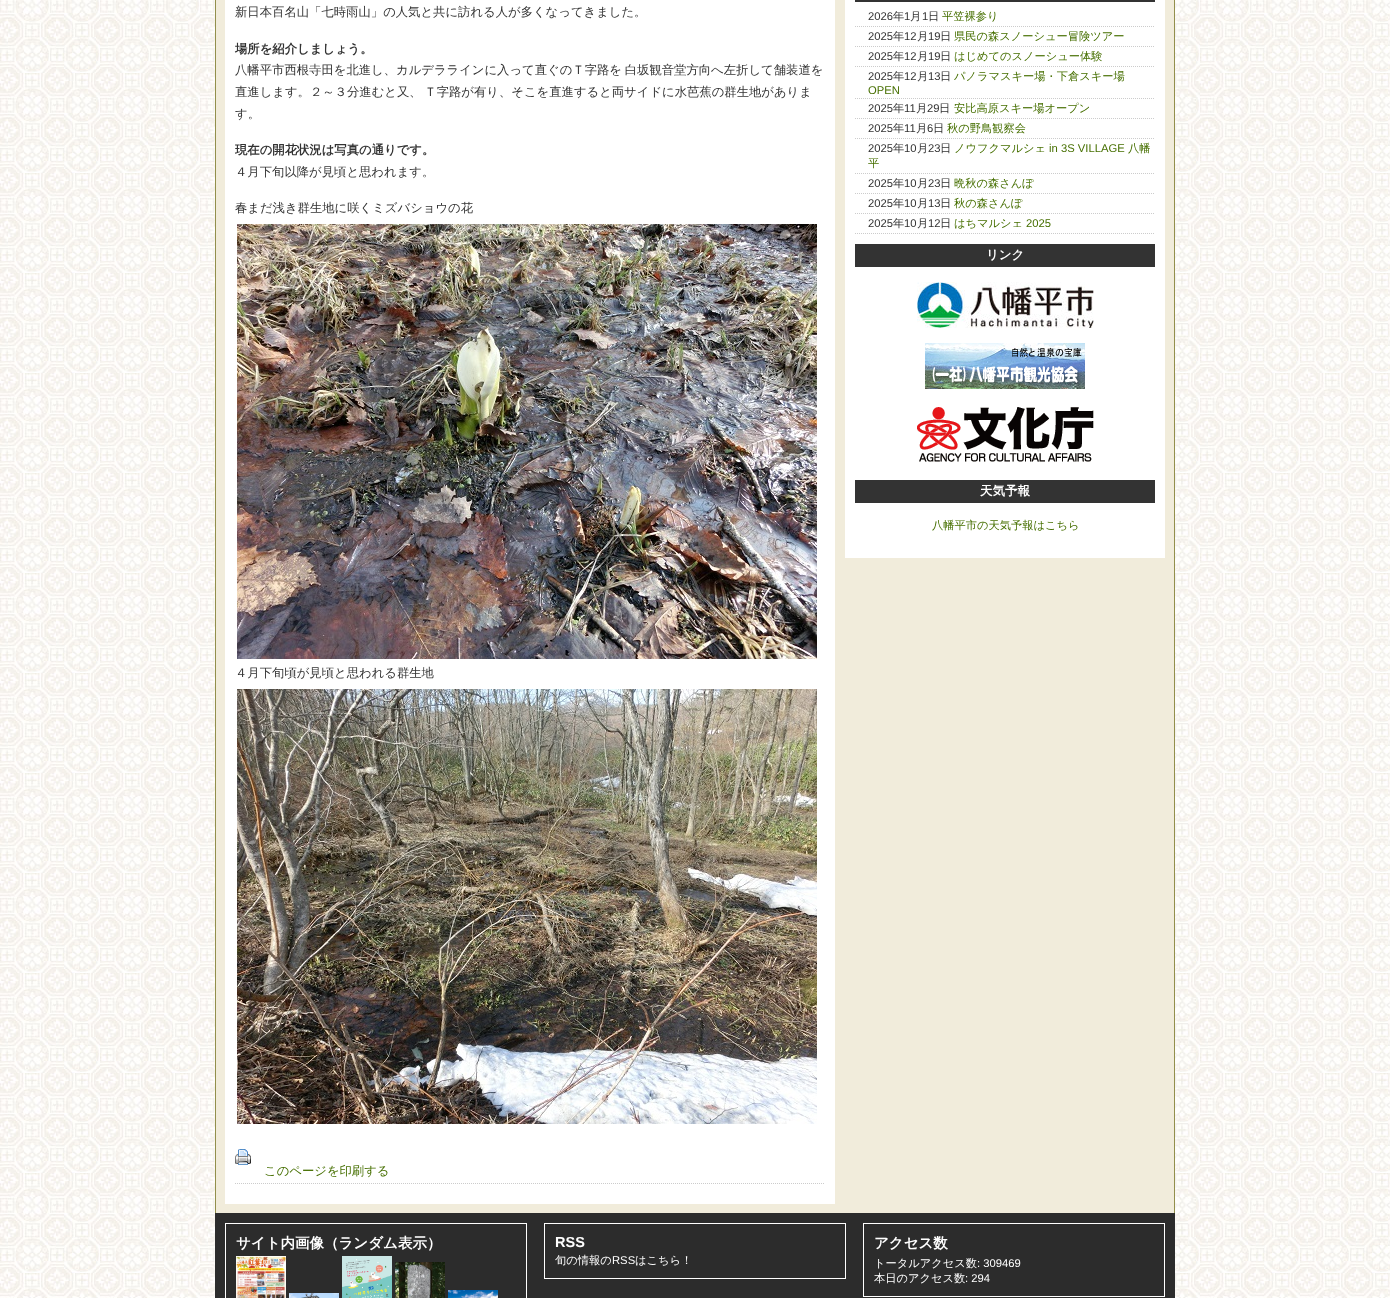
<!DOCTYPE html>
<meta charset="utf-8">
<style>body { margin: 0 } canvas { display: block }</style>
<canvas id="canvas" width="1390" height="1298"></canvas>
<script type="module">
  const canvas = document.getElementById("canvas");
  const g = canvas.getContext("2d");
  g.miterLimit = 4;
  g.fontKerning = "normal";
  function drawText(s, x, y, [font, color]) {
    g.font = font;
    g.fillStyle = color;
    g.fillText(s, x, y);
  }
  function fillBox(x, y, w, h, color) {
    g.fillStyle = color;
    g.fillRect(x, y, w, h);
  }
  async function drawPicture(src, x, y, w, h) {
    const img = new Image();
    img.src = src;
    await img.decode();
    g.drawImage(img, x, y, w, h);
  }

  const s1 = ["500 12.35px WenQuanYi Zen Hei", "#333333"];
  const s2 = ["bold 12.35px WenQuanYi Zen Hei", "#333333"];
  const s3 = ["500 12.35px WenQuanYi Zen Hei", "#466F00"];
  const s4 = ["11.25px Liberation Sans", "#333333"];
  const s5 = ["500 11.25px WenQuanYi Zen Hei", "#333333"];
  const s6 = ["500 11.25px WenQuanYi Zen Hei", "#466F00"];
  const s7 = ["11.25px Liberation Sans", "#466F00"];
  const s8 = ["bold 12.5px WenQuanYi Zen Hei", "#FFFFFF"];
  const s9 = ["bold 14.5px WenQuanYi Zen Hei", "#FFFFFF"];
  const s10 = ["bold 14.5px Liberation Sans", "#FFFFFF"];
  const s11 = ["500 11.25px WenQuanYi Zen Hei", "#FFFFFF"];
  const s12 = ["11.25px Liberation Sans", "#FFFFFF"];

  fillBox(0, 0, 1390, 1298, "#FFFFFF");
  await drawPicture("pic1.png", 0, 0, 1390, 1298);
  fillBox(216, 0, 958, 1213, "#F1ECDB");
  fillBox(1174, 0, 1, 1213, "#928F4C");
  fillBox(215, 0, 1, 1213, "#928F4C");
  fillBox(225, 0, 610, 1204, "#FFFFFF");
  g.beginPath();
  g.moveTo(235, 1183.5);
  g.lineTo(825, 1183.5);
  g.strokeStyle = "#CCCCCC";
  g.setLineDash([1, 1]);
  g.stroke();
  drawText("新日本百名山「七時雨山」の人気と共に訪れる人が多くなってきました。", 235, 16, s1);
  drawText("場所を紹介しましょう。", 235, 53, s2);
  g.wordSpacing = "-1px";
  drawText("八幡平市西根寺田を北進し、カルデララインに入って直ぐのＴ字路を 白坂観音堂方向へ左折して舗装道を", 235, 74, s1);
  drawText("直進します。２～３分進むと又、 Ｔ字路が有り、そこを直進すると両サイドに水芭蕉の群生地がありま", 235, 96, s1);
  g.wordSpacing = "0px";
  drawText("す。", 235, 118, s1);
  drawText("現在の開花状況は写真の通りです。", 235, 154, s2);
  drawText("４月下旬以降が見頃と思われます。", 235, 176, s1);
  drawText("春まだ浅き群生地に咲くミズバショウの花", 235, 212, s1);
  await drawPicture("pic2.png", 237, 224, 580, 435);
  drawText("４月下旬頃が見頃と思われる群生地", 235, 677, s1);
  await drawPicture("pic3.png", 237, 689, 580, 435);
  await drawPicture("pic4.png", 235, 1149, 16, 16);
  drawText("このページを印刷する", 264, 1175, s3);
  fillBox(845, 0, 320, 558, "#FFFFFF");
  fillBox(855, 0, 300, 2, "#333333");
  g.beginPath();
  g.moveTo(855, 26.5);
  g.lineTo(1155, 26.5);
  g.stroke();
  drawText("2026", 868, 20, s4);
  drawText("年", 893, 20, s5);
  drawText("1", 904, 20, s4);
  drawText("月", 910, 20, s5);
  drawText("1", 922, 20, s4);
  drawText("日", 928, 20, s5);
  drawText("平笠裸参り", 942, 20, s6);
  g.beginPath();
  g.moveTo(855, 46.5);
  g.lineTo(1155, 46.5);
  g.stroke();
  drawText("2025", 868, 40, s4);
  drawText("年", 893, 40, s5);
  drawText("12", 904, 40, s4);
  drawText("月", 917, 40, s5);
  drawText("19", 928, 40, s4);
  drawText("日", 940, 40, s5);
  drawText("県民の森スノーシュー冒険ツアー", 954, 40, s6);
  g.beginPath();
  g.moveTo(855, 66.5);
  g.lineTo(1155, 66.5);
  g.stroke();
  drawText("2025", 868, 60, s4);
  drawText("年", 893, 60, s5);
  drawText("12", 904, 60, s4);
  drawText("月", 917, 60, s5);
  drawText("19", 928, 60, s4);
  drawText("日", 940, 60, s5);
  drawText("はじめてのスノーシュー体験", 954, 60, s6);
  g.beginPath();
  g.moveTo(855, 98.5);
  g.lineTo(1155, 98.5);
  g.stroke();
  drawText("2025", 868, 80, s4);
  drawText("年", 893, 80, s5);
  drawText("12", 904, 80, s4);
  drawText("月", 917, 80, s5);
  drawText("13", 928, 80, s4);
  drawText("日", 940, 80, s5);
  drawText("パノラマスキー場・下倉スキー場", 954, 80, s6);
  drawText("OPEN", 868, 94, s7);
  g.beginPath();
  g.moveTo(855, 118.5);
  g.lineTo(1155, 118.5);
  g.stroke();
  drawText("2025", 868, 112, s4);
  drawText("年", 893, 112, s5);
  drawText("11", 904, 112, s4);
  drawText("月", 916, 112, s5);
  drawText("29", 927, 112, s4);
  drawText("日", 939, 112, s5);
  drawText("安比高原スキー場オープン", 954, 112, s6);
  g.beginPath();
  g.moveTo(855, 138.5);
  g.lineTo(1155, 138.5);
  g.stroke();
  drawText("2025", 868, 132, s4);
  drawText("年", 893, 132, s5);
  drawText("11", 904, 132, s4);
  drawText("月", 916, 132, s5);
  drawText("6", 927, 132, s4);
  drawText("日", 933, 132, s5);
  drawText("秋の野鳥観察会", 947, 132, s6);
  g.beginPath();
  g.moveTo(855, 173.5);
  g.lineTo(1155, 173.5);
  g.stroke();
  drawText("2025", 868, 152, s4);
  drawText("年", 893, 152, s5);
  drawText("10", 904, 152, s4);
  drawText("月", 917, 152, s5);
  drawText("23", 928, 152, s4);
  drawText("日", 940, 152, s5);
  drawText("ノウフクマルシェ", 954, 152, s6);
  drawText("in 3S VILLAGE", 1049, 152, s7);
  drawText("八幡", 1128, 152, s6);
  drawText("平", 868, 167, s6);
  g.beginPath();
  g.moveTo(855, 193.5);
  g.lineTo(1155, 193.5);
  g.stroke();
  drawText("2025", 868, 187, s4);
  drawText("年", 893, 187, s5);
  drawText("10", 904, 187, s4);
  drawText("月", 917, 187, s5);
  drawText("23", 928, 187, s4);
  drawText("日", 940, 187, s5);
  drawText("晩秋の森さんぽ", 954, 187, s6);
  g.beginPath();
  g.moveTo(855, 213.5);
  g.lineTo(1155, 213.5);
  g.stroke();
  drawText("2025", 868, 207, s4);
  drawText("年", 893, 207, s5);
  drawText("10", 904, 207, s4);
  drawText("月", 917, 207, s5);
  drawText("13", 928, 207, s4);
  drawText("日", 940, 207, s5);
  drawText("秋の森さんぽ", 954, 207, s6);
  g.beginPath();
  g.moveTo(855, 233.5);
  g.lineTo(1155, 233.5);
  g.stroke();
  drawText("2025", 868, 227, s4);
  drawText("年", 893, 227, s5);
  drawText("10", 904, 227, s4);
  drawText("月", 917, 227, s5);
  drawText("12", 928, 227, s4);
  drawText("日", 940, 227, s5);
  drawText("はちマルシェ", 954, 227, s6);
  drawText("2025", 1026, 227, s7);
  fillBox(855, 244, 300, 23, "#333333");
  drawText("リンク", 986, 259, s8);
  await drawPicture("pic5.png", 917, 282, 177, 46);
  await drawPicture("pic6.png", 925, 343, 160, 46);
  await drawPicture("pic7.png", 917, 407, 177, 55);
  fillBox(855, 480, 300, 23, "#333333");
  drawText("天気予報", 980, 495, s8);
  drawText("八幡平市の天気予報はこちら", 932, 529, s6);
  fillBox(215, 1213, 960, 85, "#2C2C2C");
  g.strokeStyle = "#FFFFFF";
  g.setLineDash([]);
  g.strokeRect(225.5, 1223.5, 301, 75);
  drawText("サイト内画像（ランダム表示）", 236, 1248, s9);
  await drawPicture("pic8.png", 236, 1256, 50, 42);
  await drawPicture("pic9.png", 289, 1293, 50, 5);
  await drawPicture("pic10.png", 342, 1256, 50, 42);
  await drawPicture("pic11.png", 395, 1262, 50, 36);
  await drawPicture("pic12.png", 448, 1290, 50, 8);
  g.strokeRect(544.5, 1223.5, 301, 55);
  drawText("RSS", 555, 1247, s10);
  drawText("旬の情報の", 555, 1264, s11);
  drawText("RSS", 612, 1264, s12);
  drawText("はこちら！", 635, 1264, s11);
  g.strokeRect(863.5, 1223.5, 301, 73);
  drawText("アクセス数", 874, 1248, s9);
  drawText("トータルアクセス数", 874, 1267, s11);
  drawText(": 309469", 977, 1267, s12);
  drawText("本日のアクセス数", 874, 1282, s11);
  drawText(": 294", 965, 1282, s12);
</script>
